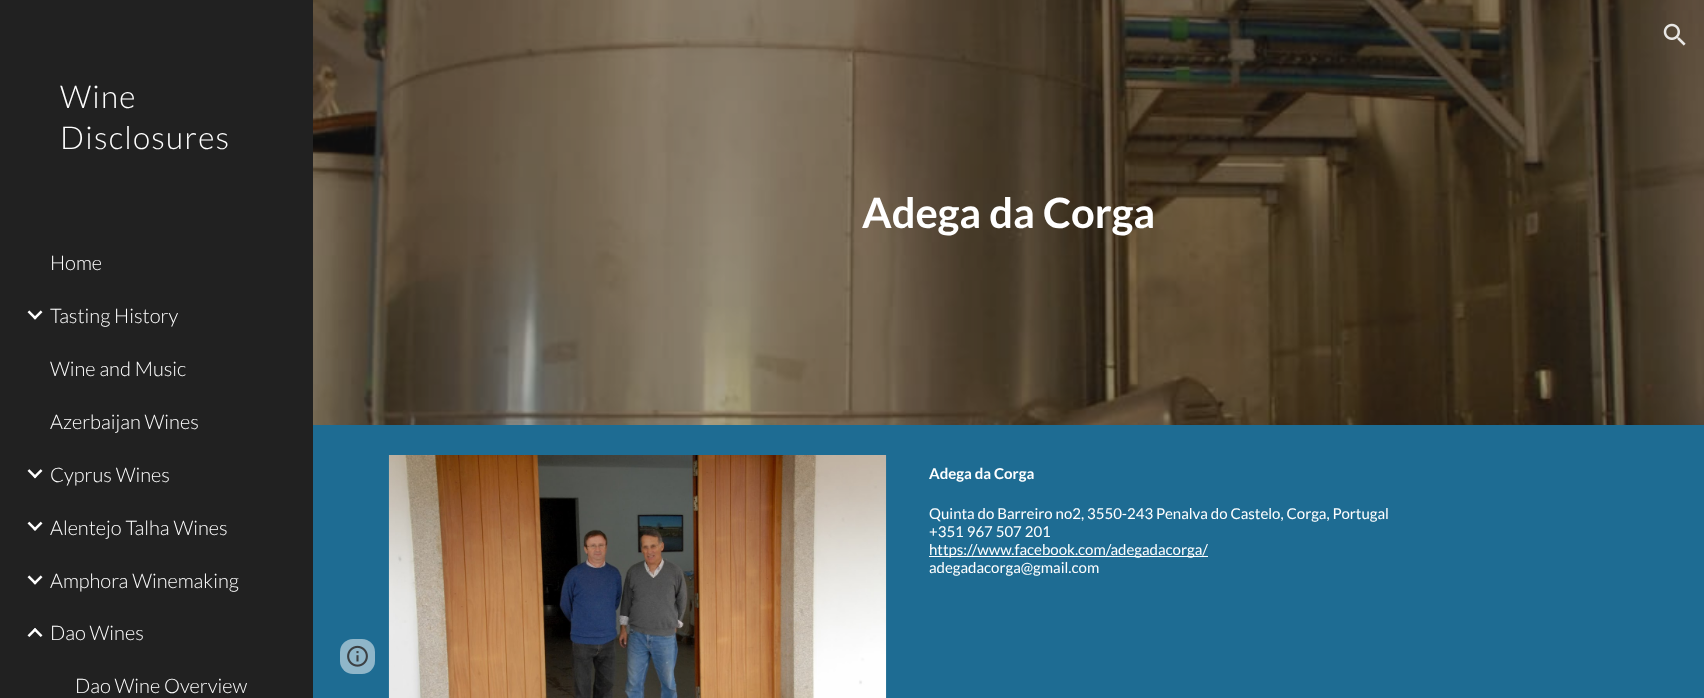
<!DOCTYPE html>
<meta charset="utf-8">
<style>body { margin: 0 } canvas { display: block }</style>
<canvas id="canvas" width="1704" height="698"></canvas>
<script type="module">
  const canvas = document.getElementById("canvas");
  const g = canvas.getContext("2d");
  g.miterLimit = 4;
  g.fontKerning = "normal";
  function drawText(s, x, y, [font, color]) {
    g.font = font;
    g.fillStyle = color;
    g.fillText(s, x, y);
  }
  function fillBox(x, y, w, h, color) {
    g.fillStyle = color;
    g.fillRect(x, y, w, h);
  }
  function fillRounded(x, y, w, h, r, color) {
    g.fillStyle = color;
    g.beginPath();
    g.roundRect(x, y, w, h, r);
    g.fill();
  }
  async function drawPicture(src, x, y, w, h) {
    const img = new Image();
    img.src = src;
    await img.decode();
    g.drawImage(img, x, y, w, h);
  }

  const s1 = ["300 31.5px Lato", "#FFFFFF"];
  const s2 = ["300 20px Lato", "#FFFFFF"];
  const s3 = ["bold 41.75px Lato", "#FFFFFF"];
  const s4 = ["bold 15px Lato", "#FFFFFF"];
  const s5 = ["15px Lato", "#FFFFFF"];

  fillBox(0, 0, 1704, 698, "#FFFFFF");
  await drawPicture("pic6.png", 313, 0, 1391, 425);
  await drawPicture("pic1.png", 1663, 23, 23, 23);
  fillBox(0, 0, 313, 698, "#212121");
  g.letterSpacing = "1.25px";
  drawText("Wine", 60, 108, s1);
  drawText("Disclosures", 60, 149, s1);
  g.letterSpacing = "0px";
  drawText("Home", 50, 270, s2);
  await drawPicture("pic2.png", 27, 310, 16, 10);
  drawText("Tasting History", 50, 323, s2);
  drawText("Wine and Music", 50, 376, s2);
  drawText("Azerbaijan Wines", 50, 429, s2);
  await drawPicture("pic3.png", 27, 469, 16, 10);
  drawText("Cyprus Wines", 50, 482, s2);
  await drawPicture("pic4.png", 27, 521, 16, 10);
  drawText("Alentejo Talha Wines", 50, 535, s2);
  await drawPicture("pic2.png", 27, 575, 16, 10);
  drawText("Amphora Winemaking", 50, 588, s2);
  await drawPicture("pic5.png", 27, 628, 16, 9);
  drawText("Dao Wines", 50, 640, s2);
  drawText("Dao Wine Overview", 75, 693, s2);
  drawText("Adega da Corga", 862, 228, s3);
  fillBox(313, 425, 1391, 273, "#1E6C93");
  await drawPicture("pic7.png", 388, 455, 499, 243);
  drawText("Adega da Corga", 929, 479, s4);
  drawText("Quinta do Barreiro no2, 3550-243 Penalva do Castelo, Corga, Portugal", 929, 519, s5);
  drawText("+351 967 507 201", 929, 537, s5);
  fillBox(929, 556, 279, 1, "#FFFFFF");
  drawText("https://www.facebook.com/adegadacorga/", 929, 555, s5);
  drawText("adegadacorga@gmail.com", 929, 573, s5);
  fillRounded(340, 639, 35, 35, 13, "#8FB6C9");
  await drawPicture("pic8.png", 347, 645, 21, 22);
</script>
